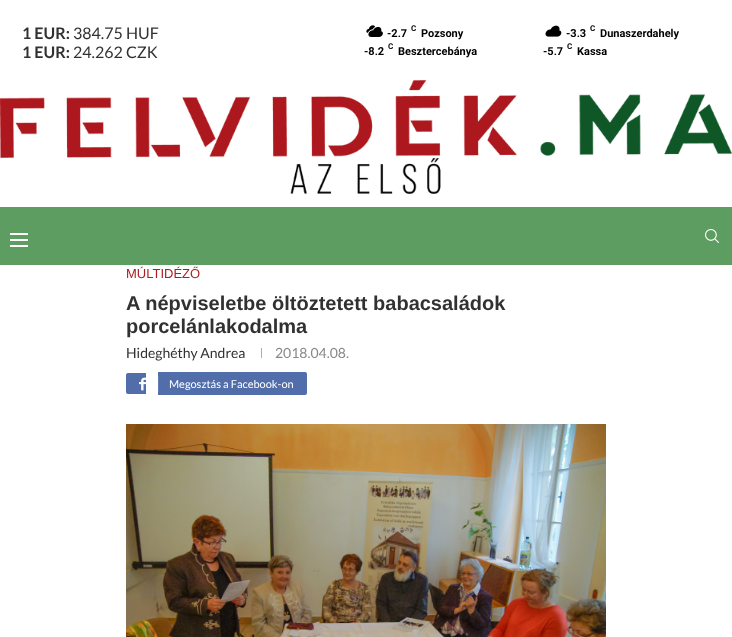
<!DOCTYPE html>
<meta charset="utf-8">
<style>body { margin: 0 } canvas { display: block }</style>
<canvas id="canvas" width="732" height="637"></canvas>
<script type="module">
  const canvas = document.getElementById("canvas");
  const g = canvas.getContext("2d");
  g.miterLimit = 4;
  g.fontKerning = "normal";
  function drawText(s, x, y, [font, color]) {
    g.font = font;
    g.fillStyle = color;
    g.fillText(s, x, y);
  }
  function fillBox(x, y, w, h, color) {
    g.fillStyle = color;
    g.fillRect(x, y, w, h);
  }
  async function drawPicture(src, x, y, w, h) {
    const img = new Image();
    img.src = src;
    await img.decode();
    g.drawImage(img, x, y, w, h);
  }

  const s1 = ["bold 16px Lato", "#313131"];
  const s2 = ["16px Lato", "#313131"];
  const s3 = ["bold 11px Roboto", "#000000"];
  const s4 = ["bold 8px Roboto", "#000000"];
  const s5 = ["13px Liberation Sans", "#AC1E23"];
  const s6 = ["bold 20px Liberation Sans", "#313131"];
  const s7 = ["14px Lato", "#313131"];
  const s8 = ["14px Lato", "#888888"];
  const s9 = ["11px Lato", "#FFFFFF"];

  fillBox(0, 0, 732, 637, "#FFFFFF");
  drawText("1 EUR:", 22, 39, s1);
  drawText("384.75 HUF", 73, 39, s2);
  drawText("1 EUR:", 22, 58, s1);
  drawText("24.262 CZK", 73, 58, s2);
  await drawPicture("pic1.png", 366, 25, 17, 12);
  drawText("-2.7", 387, 37, s3);
  drawText("C", 411, 31, s4);
  drawText("Pozsony", 421, 37, s3);
  await drawPicture("pic2.png", 545, 25, 17, 12);
  drawText("-3.3", 566, 37, s3);
  drawText("C", 590, 31, s4);
  drawText("Dunaszerdahely", 600, 37, s3);
  drawText("-8.2", 364, 55, s3);
  drawText("C", 388, 49, s4);
  drawText("Besztercebánya", 398, 55, s3);
  drawText("-5.7", 543, 55, s3);
  drawText("C", 567, 49, s4);
  drawText("Kassa", 577, 55, s3);
  await drawPicture("pic3.png", 0, 80, 732, 114);
  fillBox(0, 207, 732, 58, "#5E9D61");
  fillBox(10, 233, 18, 2, "#FFFFFF");
  fillBox(10, 239, 18, 2, "#FFFFFF");
  fillBox(10, 245, 18, 2, "#FFFFFF");
  await drawPicture("pic4.png", 705, 229, 14, 14);
  drawText("MÚLTIDÉZŐ", 126, 278, s5);
  drawText("A népviseletbe öltöztetett babacsaládok", 126, 310, s6);
  drawText("porcelánlakodalma", 126, 333, s6);
  drawText("Hideghéthy Andrea", 126, 358, s7);
  fillBox(261, 348, 1, 10, "#ACACAC");
  drawText("2018.04.08.", 275, 358, s8);
  g.fillStyle = "#516EAB";
  g.beginPath();
  g.roundRect(126, 373, 20, 21, [2, 0, 0, 2]);
  g.fill();
  g.beginPath();
  g.roundRect(158, 372, 149, 23, [0, 2, 2, 0]);
  g.fill();
  await drawPicture("pic5.png", 139, 377, 7, 14);
  fillBox(158, 376, 1, 16, "#627DB3");
  drawText("Megosztás a Facebook-on", 169, 388, s9);
  await drawPicture("pic6.png", 126, 424, 480, 213);
</script>
